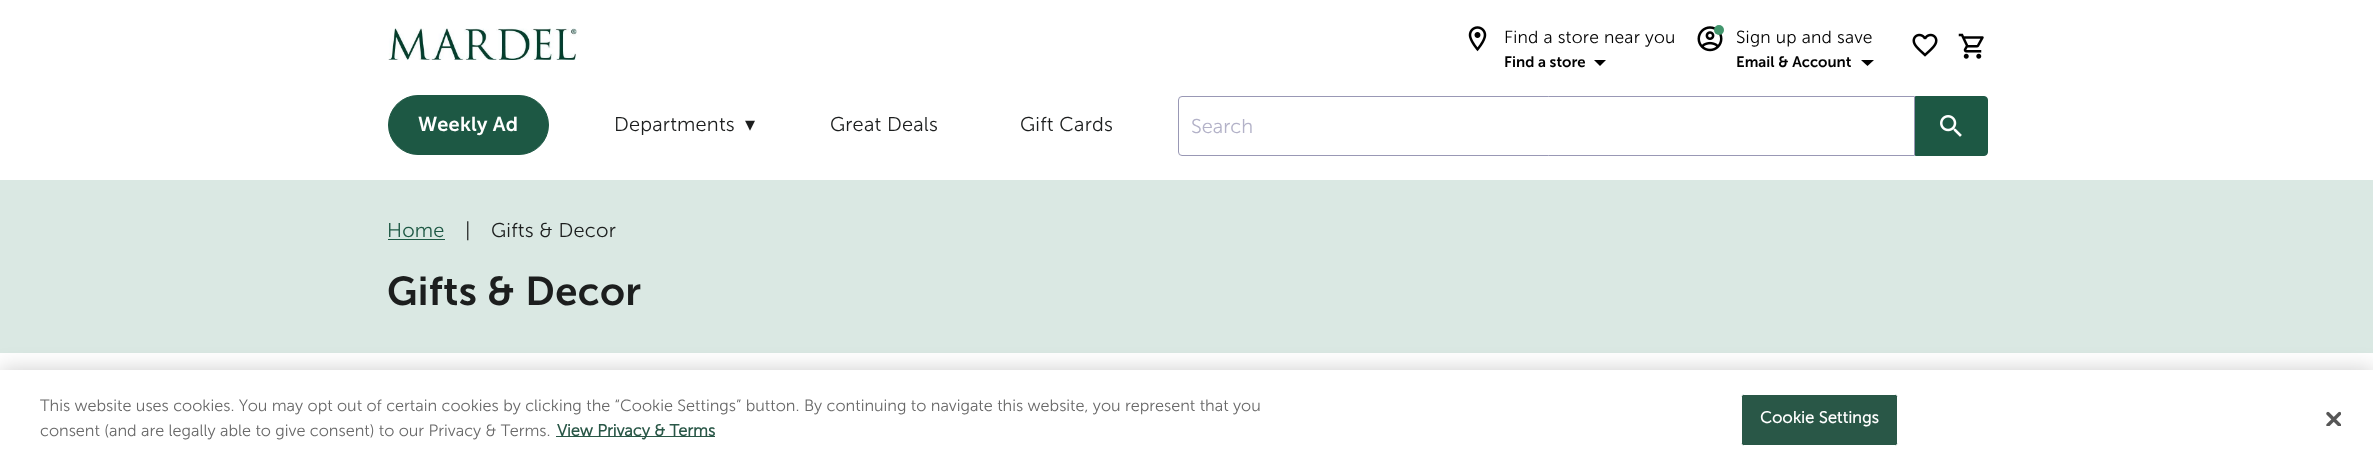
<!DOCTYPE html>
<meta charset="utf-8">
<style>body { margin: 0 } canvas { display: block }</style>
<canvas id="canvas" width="2373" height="472"></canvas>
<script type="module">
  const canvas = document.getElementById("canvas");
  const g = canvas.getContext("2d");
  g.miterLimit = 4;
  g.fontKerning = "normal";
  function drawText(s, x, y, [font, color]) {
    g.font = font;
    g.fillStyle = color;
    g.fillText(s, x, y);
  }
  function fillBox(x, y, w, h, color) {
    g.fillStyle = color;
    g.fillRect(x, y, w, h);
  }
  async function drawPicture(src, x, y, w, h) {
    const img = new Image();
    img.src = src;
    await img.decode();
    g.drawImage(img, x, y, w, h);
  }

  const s1 = ["300 17.5px 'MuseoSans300'", "#000000"];
  const s2 = ["600 15px 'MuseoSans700'", "#000000"];
  const s3 = ["600 20px 'MuseoSans700'", "#FFFFFF"];
  const s4 = ["300 20px 'MuseoSans300'", "#1C1E1E"];
  const s5 = ["20px DejaVu Sans", "#1C1E1E"];
  const s6 = ["300 20px 'MuseoSans300'", "#B3B2C8"];
  const s7 = ["300 20px 'MuseoSans300'", "#1D5844"];
  const s8 = ["600 40px 'MuseoSans700'", "#1C1E1E"];
  const s9 = ["300 16.25px 'MuseoSans300'", "#696969"];
  const s10 = ["bold 16.25px 'MuseoSans300'", "#295747"];
  const s11 = ["bold 16.25px 'MuseoSans300'", "#FFFFFF"];

  fillBox(0, 0, 2373, 472, "#FFFFFF");
  await drawPicture("pic1.png", 388, 28, 189, 32);
  await drawPicture("pic2.png", 1468, 26, 19, 26);
  g.letterSpacing = "0.2px";
  drawText("Find a store near you", 1504, 43, s1);
  g.letterSpacing = "0px";
  drawText("Find a store", 1504, 67, s2);
  g.beginPath();
  g.moveTo(1594, 60);
  g.lineTo(1600, 66);
  g.lineTo(1606, 60);
  g.closePath();
  g.fill();
  await drawPicture("pic3.png", 1697, 26, 26, 26);
  g.fillStyle = "#42966D";
  g.beginPath();
  g.arc(1719, 30, 5, 0, Math.PI * 2);
  g.fill();
  g.letterSpacing = "0.2px";
  drawText("Sign up and save", 1736, 43, s1);
  g.letterSpacing = "0px";
  drawText("Email & Account", 1736, 67, s2);
  g.beginPath();
  g.moveTo(1861, 60);
  g.lineTo(1867.5, 66);
  g.lineTo(1874, 60);
  g.closePath();
  g.fill();
  await drawPicture("pic4.png", 1912, 33, 26, 24);
  await drawPicture("pic5.png", 1958, 33, 26, 26);
  g.fillStyle = "#1D5844";
  g.beginPath();
  g.roundRect(388.5, 95.5, 160, 59, 29.5);
  g.fill();
  g.strokeStyle = "#1D5844";
  g.stroke();
  g.letterSpacing = "0.2px";
  drawText("Weekly Ad", 418, 131, s3);
  drawText("Departments", 614, 131, s4);
  drawText("▾", 745, 131, s5);
  drawText("Great Deals", 830, 131, s4);
  drawText("Gift Cards", 1020, 131, s4);
  g.beginPath();
  g.roundRect(1178.5, 96.5, 736, 59, [3.5, 0, 0, 3.5]);
  g.strokeStyle = "#9998B5";
  g.stroke();
  g.letterSpacing = "0px";
  drawText("Search", 1191, 133, s6);
  g.fillStyle = "#1D5844";
  g.beginPath();
  g.roundRect(1915.5, 96.5, 72, 59, [0, 3.5, 3.5, 0]);
  g.fill();
  g.strokeStyle = "#1D5844";
  g.stroke();
  await drawPicture("pic6.png", 1940, 115, 22, 22);
  fillBox(0, 180, 2373, 173, "#DAE8E3");
  g.letterSpacing = "0.2px";
  drawText("Home", 387, 237, s7);
  fillBox(388, 239, 57, 1, "#1D5844");
  drawText("|", 465, 237, s4);
  drawText("Gifts & Decor", 491, 237, s4);
  g.letterSpacing = "0.4px";
  drawText("Gifts & Decor", 387, 305, s8);
  g.fillStyle = "rgba(0, 0, 0, 0.2)";
  g.filter = "blur(11px)";
  g.beginPath();
  g.rect(0, 370, 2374, 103);
  g.fill();
  g.filter = "none";
  fillBox(0, 370, 2373, 102, "#FFFFFF");
  g.letterSpacing = "0px";
  drawText("This website uses cookies. You may opt out of certain cookies by clicking the “Cookie Settings” button. By continuing to navigate this website, you represent that you", 40, 411, s9);
  drawText("consent (and are legally able to give consent) to our Privacy & Terms.", 40, 436, s9);
  fillBox(556, 436, 159, 1, "#295747");
  drawText("View Privacy & Terms", 557, 436, s10);
  g.beginPath();
  g.roundRect(1741.5, 394.5, 156, 51, 2);
  g.fill();
  g.strokeStyle = "#FFFFFF";
  g.stroke();
  g.letterSpacing = "0.2px";
  drawText("Cookie Settings", 1760, 423, s11);
  await drawPicture("pic7.png", 2326, 411, 15, 15);
</script>
